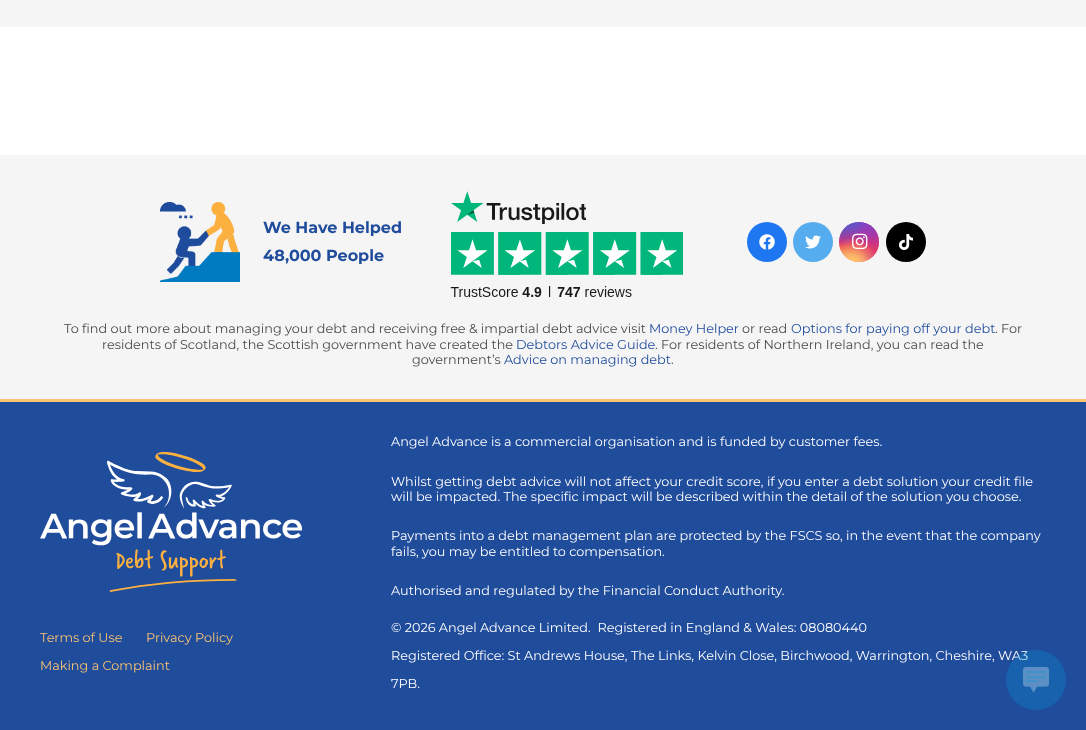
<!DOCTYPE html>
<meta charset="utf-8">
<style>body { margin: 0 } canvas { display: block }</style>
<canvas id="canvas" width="1086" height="730"></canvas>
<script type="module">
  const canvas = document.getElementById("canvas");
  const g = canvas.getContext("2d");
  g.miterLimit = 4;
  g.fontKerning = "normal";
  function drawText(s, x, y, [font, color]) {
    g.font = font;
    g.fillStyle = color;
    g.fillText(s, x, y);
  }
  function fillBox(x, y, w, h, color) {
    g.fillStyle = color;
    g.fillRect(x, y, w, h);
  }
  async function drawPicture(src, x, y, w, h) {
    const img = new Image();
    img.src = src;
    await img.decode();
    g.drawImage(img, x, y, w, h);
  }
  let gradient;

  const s1 = ["100 16px 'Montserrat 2'", "#204C9C"];
  const s2 = ["100 12.8px Montserrat", "#4A4A4A"];
  const s3 = ["100 12.8px Montserrat", "#204C9C"];
  const s4 = ["100 12.8px Montserrat", "#F9C372"];
  const s5 = ["100 12.8px Montserrat", "#FFFFFF"];

  fillBox(0, 0, 1086, 730, "#FFFFFF");
  fillBox(0, 0, 1086, 27, "#F5F5F5");
  fillBox(0, 155, 1086, 244, "#F5F5F5");
  await drawPicture("pic1.png", 160, 202, 80, 80);
  drawText("We Have Helped", 263, 233, s1);
  drawText("48,000 People", 263, 261, s1);
  await drawPicture("pic2.png", 450, 191, 233, 106);
  g.fillStyle = "#1E77F0";
  g.beginPath();
  g.arc(767, 242, 20, 0, Math.PI * 2);
  g.fill();
  await drawPicture("pic3.png", 759, 234, 16, 16);
  g.fillStyle = "#55ACEE";
  g.beginPath();
  g.arc(813, 242, 20, 0, Math.PI * 2);
  g.fill();
  await drawPicture("pic4.png", 805, 235, 16, 14);
  gradient = g.createLinearGradient(859, 222, 859, 262);
  gradient.addColorStop(0, "#6559CA");
  gradient.addColorStop(0.3, "#BC318F");
  gradient.addColorStop(0.5, "#E42E66");
  gradient.addColorStop(0.7, "#FA5332");
  gradient.addColorStop(1, "#FFDC80");
  g.fillStyle = gradient;
  g.beginPath();
  g.arc(859, 242, 20, 0, Math.PI * 2);
  g.fill();
  gradient = g.createRadialGradient(879, 262, 0, 879, 262, 57);
  gradient.addColorStop(0, "#D9317A");
  gradient.addColorStop(1, "rgba(217, 49, 122, 0)");
  g.fillStyle = gradient;
  g.beginPath();
  g.arc(859, 242, 20, 0, Math.PI * 2);
  g.fill();
  gradient = g.createRadialGradient(863, 107, 0, 863, 107, 34);
  gradient.addColorStop(0, "#893DC2");
  gradient.addColorStop(0.5, "rgba(137, 61, 194, 0)");
  g.fillStyle = gradient;
  g.beginPath();
  g.arc(859, 242, 20, 0, Math.PI * 2);
  g.save();
  g.clip();
  g.scale(1, 68 / 34);
  g.fillRect(0, 0, 1086, 365);
  g.restore();
  gradient = g.createRadialGradient(879, 222, 0, 879, 222, 57);
  gradient.addColorStop(0, "#893DC2");
  gradient.addColorStop(0.5, "rgba(137, 61, 194, 0)");
  g.fillStyle = gradient;
  g.beginPath();
  g.arc(859, 242, 20, 0, Math.PI * 2);
  g.fill();
  gradient = g.createRadialGradient(847, 106.94, 0, 847, 106.94, 45);
  gradient.addColorStop(0, "#5258CF");
  gradient.addColorStop(0.5, "rgba(82, 88, 207, 0)");
  g.fillStyle = gradient;
  g.beginPath();
  g.arc(859, 242, 20, 0, Math.PI * 2);
  g.save();
  g.clip();
  g.scale(1, 85 / 45);
  g.fillRect(0, 0, 1086, 387);
  g.restore();
  gradient = g.createRadialGradient(839, 170.2, 0, 839, 170.2, 57);
  gradient.addColorStop(0, "#5258CF");
  gradient.addColorStop(0.5, "rgba(82, 88, 207, 0)");
  g.fillStyle = gradient;
  g.beginPath();
  g.arc(859, 242, 20, 0, Math.PI * 2);
  g.save();
  g.clip();
  g.scale(1, 71 / 57);
  g.fillRect(0, 0, 1086, 587);
  g.restore();
  gradient = g.createRadialGradient(843, 278, 0, 843, 278, 67);
  gradient.addColorStop(0, "#FEDA7E");
  gradient.addColorStop(0.5, "rgba(254, 218, 126, 0)");
  g.fillStyle = gradient;
  g.beginPath();
  g.arc(859, 242, 20, 0, Math.PI * 2);
  g.fill();
  gradient = g.createRadialGradient(853, 262, 0, 853, 262, 48);
  gradient.addColorStop(0, "#FEC564");
  gradient.addColorStop(0.5, "rgba(254, 197, 100, 0)");
  g.fillStyle = gradient;
  g.beginPath();
  g.arc(859, 242, 20, 0, Math.PI * 2);
  g.fill();
  await drawPicture("pic5.png", 852, 233, 16, 17);
  g.fillStyle = "#000000";
  g.beginPath();
  g.arc(906, 242, 20, 0, Math.PI * 2);
  g.fill();
  await drawPicture("pic6.png", 899, 234, 14, 16);
  drawText("To find out more about managing your debt and receiving free & impartial debt advice visit", 64, 333, s2);
  drawText("Money Helper", 649, 333, s3);
  drawText("or read", 742, 333, s2);
  drawText("Options for paying off your debt", 791, 333, s3);
  drawText(". For", 995, 333, s2);
  drawText("residents of Scotland, the Scottish government have created the", 102, 349, s2);
  drawText("Debtors Advice Guide", 516, 349, s3);
  drawText(". For residents of Northern Ireland, you can read the", 655, 349, s2);
  drawText("government’s", 412, 364, s2);
  drawText("Advice on managing debt", 504, 364, s3);
  drawText(".", 671, 364, s2);
  fillBox(0, 402, 1086, 328, "#204C9C");
  fillBox(0, 399, 1086, 3, "#F9C372");
  await drawPicture("pic7.png", 40, 452, 262, 140);
  drawText("Terms of Use", 40, 642, s4);
  drawText("Privacy Policy", 146, 642, s4);
  drawText("Making a Complaint", 40, 670, s4);
  drawText("Angel Advance is a commercial organisation and is funded by customer fees.", 391, 446, s5);
  drawText("Whilst getting debt advice will not affect your credit score, if you enter a debt solution your credit file", 391, 486, s5);
  drawText("will be impacted. The specific impact will be described within the detail of the solution you choose.", 391, 501, s5);
  drawText("Payments into a debt management plan are protected by the FSCS so, in the event that the company", 391, 540, s5);
  drawText("fails, you may be entitled to compensation.", 391, 556, s5);
  drawText("Authorised and regulated by the Financial Conduct Authority.", 391, 595, s5);
  drawText("© 2026 Angel Advance Limited.  Registered in England & Wales: 08080440", 391, 632, s5);
  drawText("Registered Office: St Andrews House, The Links, Kelvin Close, Birchwood, Warrington, Cheshire, WA3", 391, 660, s5);
  drawText("7PB.", 391, 688, s5);
  g.fillStyle = "rgba(5, 150, 212, 0.3)";
  g.beginPath();
  g.arc(1036, 680, 30, 0, Math.PI * 2);
  g.fill();
  await drawPicture("pic8.png", 1023, 667, 26, 26);
</script>
